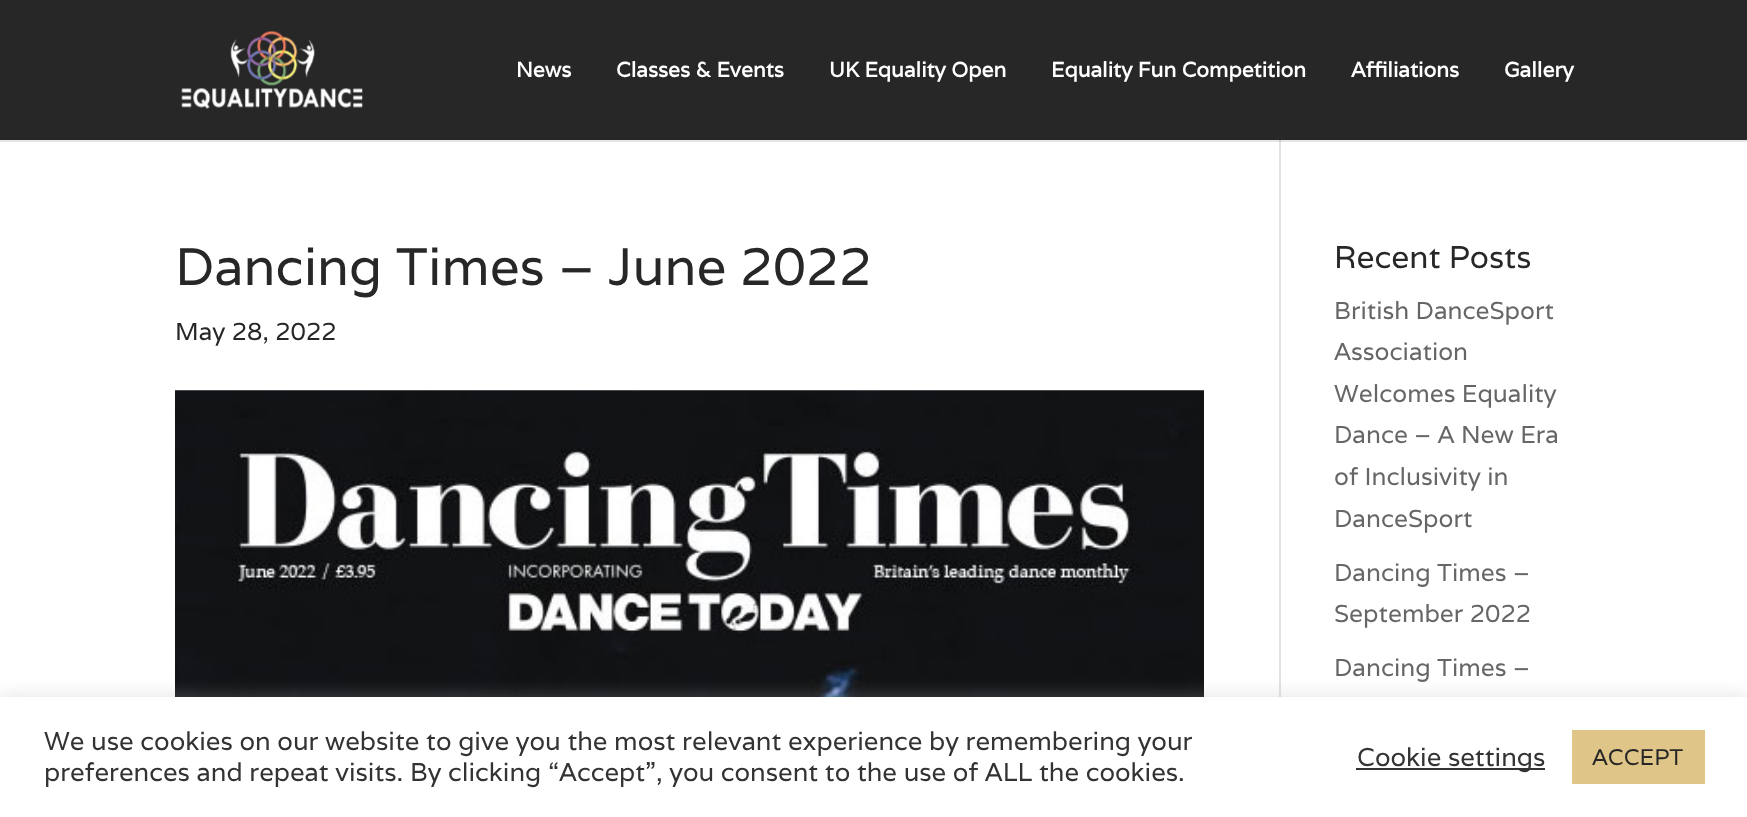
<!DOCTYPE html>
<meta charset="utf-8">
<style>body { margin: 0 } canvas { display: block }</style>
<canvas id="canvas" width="1747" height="817"></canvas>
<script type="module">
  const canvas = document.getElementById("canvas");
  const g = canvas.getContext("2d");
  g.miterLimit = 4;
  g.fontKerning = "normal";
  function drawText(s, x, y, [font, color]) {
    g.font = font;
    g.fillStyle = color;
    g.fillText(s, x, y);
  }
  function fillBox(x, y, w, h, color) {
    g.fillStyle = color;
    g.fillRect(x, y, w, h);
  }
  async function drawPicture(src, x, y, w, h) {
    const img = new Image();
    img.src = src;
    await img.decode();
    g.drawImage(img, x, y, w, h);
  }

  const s1 = ["bold 21px Varela", "#FFFFFF"];
  const s2 = ["52.5px Varela", "#272727"];
  const s3 = ["24.5px Varela", "#272727"];
  const s4 = ["31.5px Varela", "#272727"];
  const s5 = ["24.5px Varela", "#666666"];
  const s6 = ["25.65px Varela", "#333333"];
  const s7 = ["22.75px Varela", "#272727"];

  fillBox(0, 0, 1747, 817, "#FFFFFF");
  fillBox(0, 140, 1747, 2, "#E6E6E6");
  fillBox(0, 0, 1747, 140, "#272727");
  await drawPicture("pic1.png", 181, 31, 182, 78);
  drawText("News", 516, 77, s1);
  drawText("Classes & Events", 616, 77, s1);
  drawText("UK Equality Open", 829, 77, s1);
  drawText("Equality Fun Competition", 1051, 77, s1);
  drawText("Affiliations", 1351, 77, s1);
  drawText("Gallery", 1504, 77, s1);
  fillBox(1279, 140, 2, 557, "#E2E2E2");
  fillBox(1279, 140, 2, 2, "#CBCBCB");
  drawText("Dancing Times – June 2022", 175, 285, s2);
  drawText("May 28, 2022", 175, 340, s3);
  await drawPicture("pic2.png", 175, 390, 1029, 307);
  drawText("Recent Posts", 1334, 268, s4);
  drawText("British DanceSport", 1334, 319, s5);
  drawText("Association", 1334, 360, s5);
  drawText("Welcomes Equality", 1334, 402, s5);
  drawText("Dance – A New Era", 1334, 443, s5);
  drawText("of Inclusivity in", 1334, 485, s5);
  drawText("DanceSport", 1334, 527, s5);
  drawText("Dancing Times –", 1334, 581, s5);
  drawText("September 2022", 1334, 622, s5);
  drawText("Dancing Times –", 1334, 676, s5);
  g.fillStyle = "rgba(172, 171, 171, 0.3)";
  g.filter = "blur(9px)";
  g.beginPath();
  g.rect(0, 695, 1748, 121);
  g.fill();
  g.filter = "none";
  fillBox(0, 697, 1747, 120, "#FFFFFF");
  drawText("We use cookies on our website to give you the most relevant experience by remembering your", 44, 750, s6);
  drawText("preferences and repeat visits. By clicking “Accept”, you consent to the use of ALL the cookies.", 44, 781, s6);
  fillBox(1356, 768, 189, 2, "#333333");
  drawText("Cookie settings", 1357, 766, s6);
  fillBox(1572, 730, 133, 54, "#E0C588");
  drawText("ACCEPT", 1592, 765, s7);
</script>
